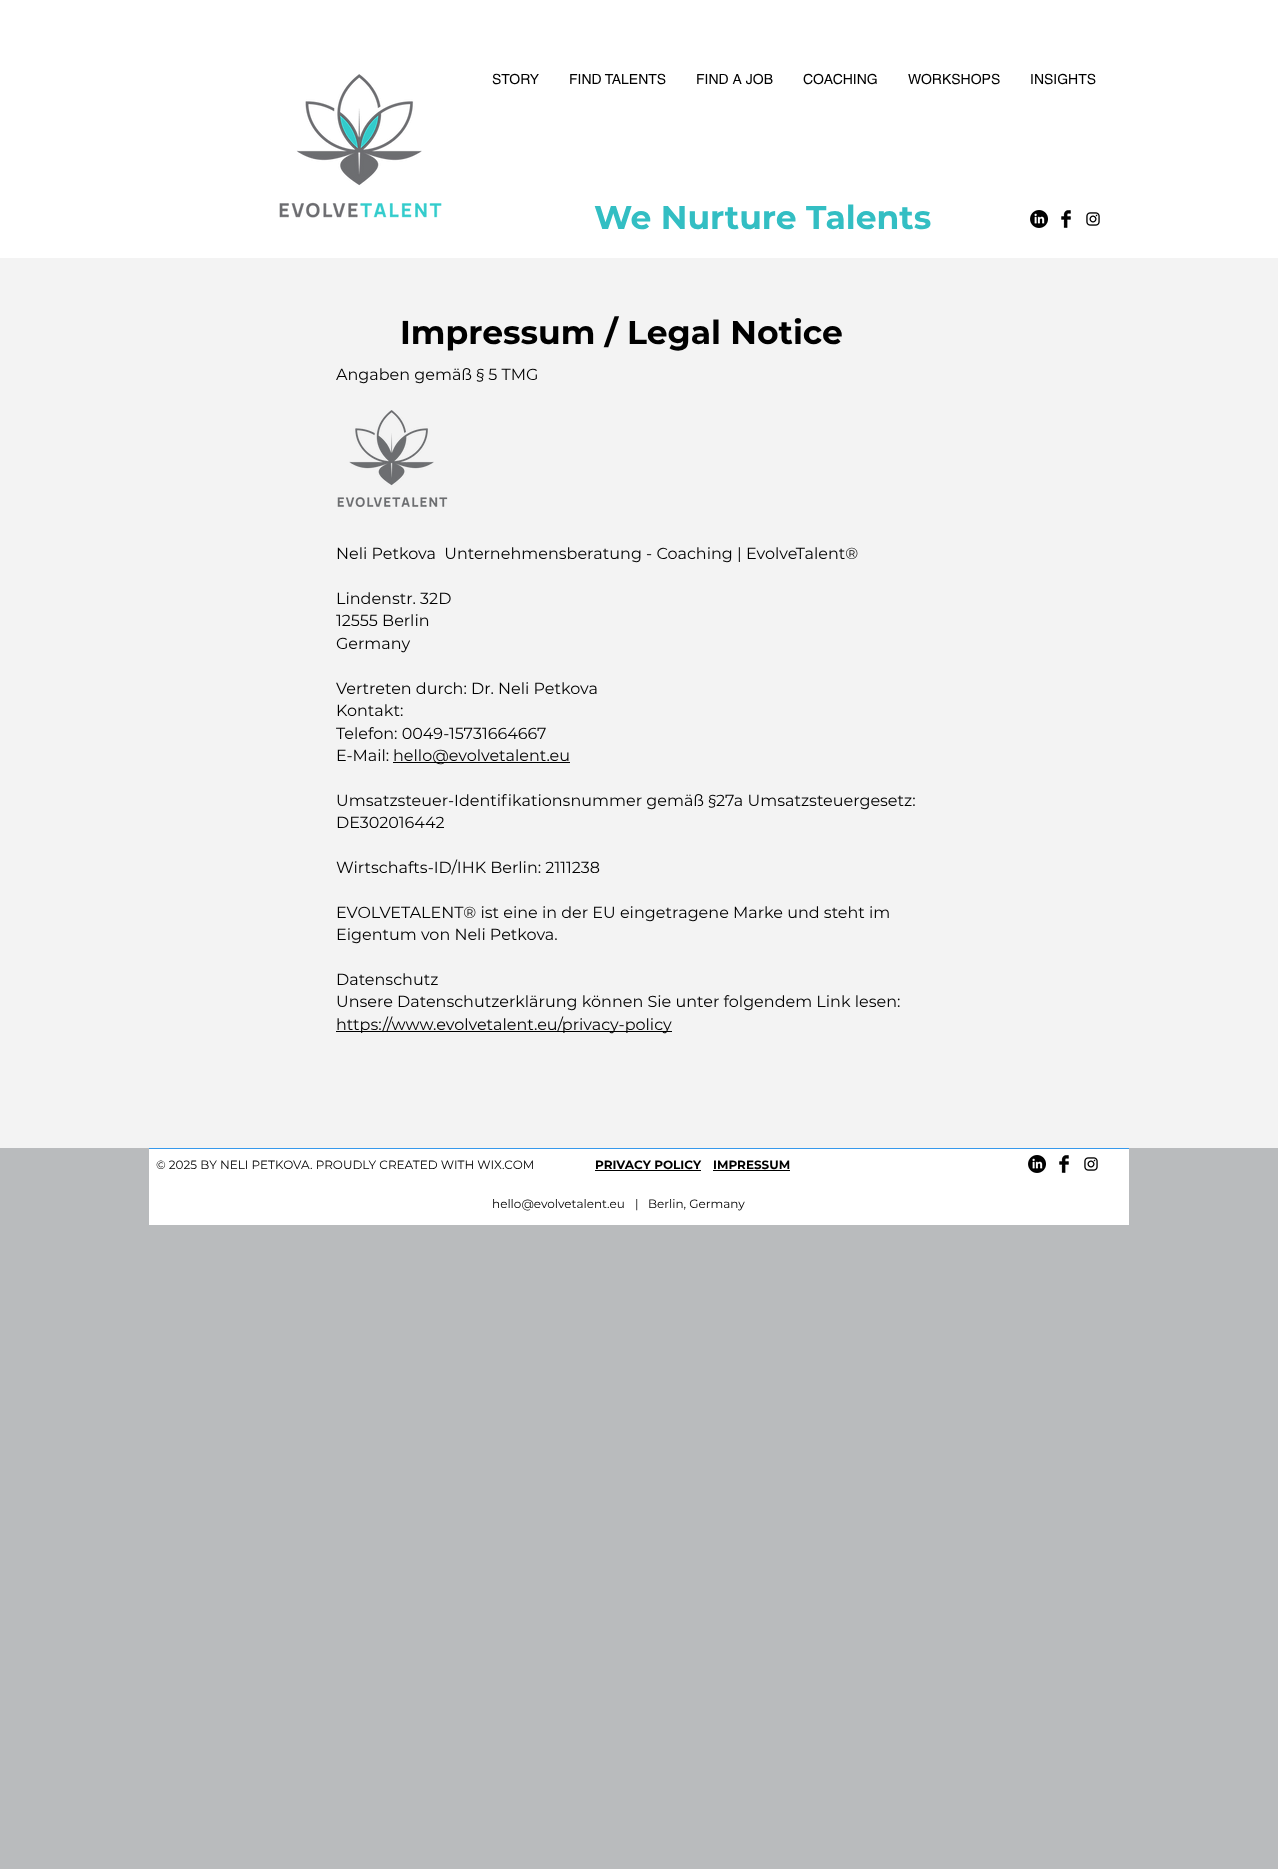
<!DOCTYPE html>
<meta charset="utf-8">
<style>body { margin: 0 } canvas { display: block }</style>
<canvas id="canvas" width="1278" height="1869"></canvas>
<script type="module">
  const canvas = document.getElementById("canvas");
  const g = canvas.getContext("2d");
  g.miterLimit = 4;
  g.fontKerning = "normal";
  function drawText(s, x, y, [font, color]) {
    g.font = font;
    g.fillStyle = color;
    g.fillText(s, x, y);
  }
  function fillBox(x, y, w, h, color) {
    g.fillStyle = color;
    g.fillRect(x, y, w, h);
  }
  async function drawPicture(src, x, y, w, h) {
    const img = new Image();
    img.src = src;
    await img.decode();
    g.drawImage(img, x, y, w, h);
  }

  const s1 = ["14px helvetica", "#000000"];
  const s2 = ["bold 33px Montserrat", "#33BEC3"];
  const s3 = ["bold 33px Montserrat", "#000000"];
  const s4 = ["16px Montserrat", "#000000"];
  const s5 = ["12px Montserrat", "#000000"];
  const s6 = ["bold 12px Montserrat", "#000000"];

  fillBox(0, 0, 1278, 1869, "#B9BBBD");
  fillBox(0, 0, 1278, 258, "#FFFFFF");
  await drawPicture("pic1.png", 279, 74, 163, 144);
  drawText("STORY", 492, 84, s1);
  drawText("FIND TALENTS", 569, 84, s1);
  drawText("FIND A JOB", 696, 84, s1);
  drawText("COACHING", 803, 84, s1);
  drawText("WORKSHOPS", 908, 84, s1);
  drawText("INSIGHTS", 1030, 84, s1);
  drawText("We Nurture Talents", 594, 229, s2);
  await drawPicture("pic2.png", 1030, 210, 18, 18);
  await drawPicture("pic3.png", 1061, 210, 10, 18);
  await drawPicture("pic4.png", 1086, 212, 14, 14);
  fillBox(0, 258, 1278, 890, "#F3F3F3");
  drawText("Impressum / Legal Notice", 400, 344, s3);
  drawText("Angaben gemäß § 5 TMG", 336, 380, s4);
  drawText("Neli Petkova  Unternehmensberatung - Coaching | EvolveTalent®", 336, 559, s4);
  drawText("Lindenstr. 32D", 336, 604, s4);
  drawText("12555 Berlin", 336, 626, s4);
  drawText("Germany", 336, 649, s4);
  drawText("Vertreten durch: Dr. Neli Petkova", 336, 694, s4);
  drawText("Kontakt:", 336, 716, s4);
  drawText("Telefon: 0049-15731664667", 336, 739, s4);
  drawText("E-Mail:", 336, 761, s4);
  fillBox(393, 762, 177, 1, "#000000");
  drawText("hello@evolvetalent.eu", 393, 761, s4);
  drawText("Umsatzsteuer-Identifikationsnummer gemäß §27a Umsatzsteuergesetz:", 336, 806, s4);
  drawText("DE302016442", 336, 828, s4);
  drawText("Wirtschafts-ID/IHK Berlin: 2111238", 336, 873, s4);
  drawText("EVOLVETALENT® ist eine in der EU eingetragene Marke und steht im", 336, 918, s4);
  drawText("Eigentum von Neli Petkova.", 336, 940, s4);
  drawText("Datenschutz", 336, 985, s4);
  drawText("Unsere Datenschutzerklärung können Sie unter folgendem Link lesen:", 336, 1007, s4);
  fillBox(336, 1031, 336, 1, "#000000");
  drawText("https://www.evolvetalent.eu/privacy-policy", 336, 1030, s4);
  await drawPicture("pic5.png", 337, 410, 111, 97);
  fillBox(149, 1148, 980, 1, "#3699EC");
  fillBox(149, 1149, 980, 76, "#FFFFFF");
  drawText("© 2025 BY NELI PETKOVA. PROUDLY CREATED WITH WIX.COM", 156, 1169, s5);
  drawText("PRIVACY POLICY", 595, 1169, s6);
  fillBox(595, 1170, 106, 1, "#000000");
  drawText("IMPRESSUM", 713, 1169, s6);
  fillBox(713, 1170, 77, 1, "#000000");
  await drawPicture("pic2.png", 1028, 1155, 18, 18);
  await drawPicture("pic3.png", 1059, 1155, 10, 18);
  await drawPicture("pic4.png", 1084, 1157, 14, 14);
  drawText("hello@evolvetalent.eu", 492, 1208, s5);
  drawText("|   Berlin, Germany", 635, 1208, s5);
</script>
